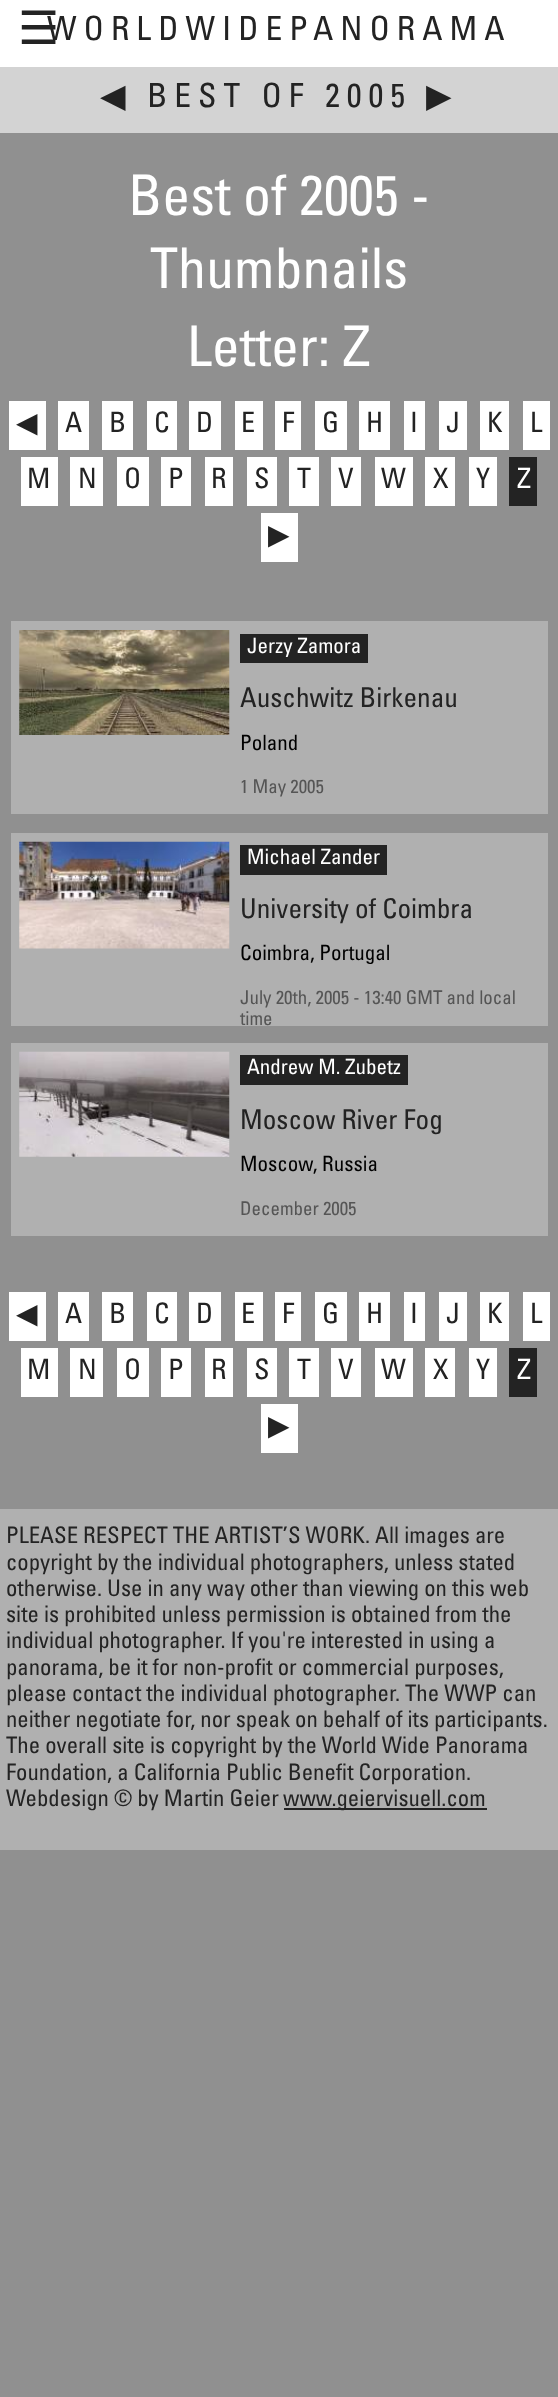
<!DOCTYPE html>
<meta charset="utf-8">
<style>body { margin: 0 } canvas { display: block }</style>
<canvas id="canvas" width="558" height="2397"></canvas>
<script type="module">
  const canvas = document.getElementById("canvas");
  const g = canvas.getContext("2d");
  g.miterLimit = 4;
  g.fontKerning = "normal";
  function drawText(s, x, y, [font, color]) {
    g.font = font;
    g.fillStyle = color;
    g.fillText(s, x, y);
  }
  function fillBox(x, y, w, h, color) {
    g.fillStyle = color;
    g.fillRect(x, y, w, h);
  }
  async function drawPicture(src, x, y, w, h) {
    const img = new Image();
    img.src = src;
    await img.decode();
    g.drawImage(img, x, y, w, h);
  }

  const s1 = ["33.25px Univers", "#232323"];
  const s2 = ["46px DejaVu Sans", "#232323"];
  const s3 = ["33.25px DejaVu Sans", "#232323"];
  const s4 = ["56px Univers", "#FFFFFF"];
  const s5 = ["28px DejaVu Sans", "#232323"];
  const s6 = ["28px Univers", "#232323"];
  const s7 = ["28px Univers", "#FFFFFF"];
  const s8 = ["21px Univers", "#FFFFFF"];
  const s9 = ["27.25px Univers", "#232323"];
  const s10 = ["21px Univers", "#000000"];
  const s11 = ["18.9px Univers", "#555555"];
  const s12 = ["22.75px Univers", "#232323"];

  fillBox(0, 0, 558, 2397, "#909090");
  fillBox(0, 0, 558, 67, "#FFFFFF");
  g.letterSpacing = "7px";
  drawText("WORLDWIDEPANORAMA", 47, 40, s1);
  drawText("☰", 18, 44, s2);
  fillBox(0, 67, 558, 66, "#D3D3D3");
  drawText("◀", 100, 107, s3);
  drawText("BEST OF 2005", 147, 107, s1);
  drawText("▶", 426, 107, s3);
  g.letterSpacing = "0px";
  drawText("Best of 2005 -", 128, 215, s4);
  drawText("Thumbnails", 150, 288, s4);
  drawText("Letter: Z", 187, 366, s4);
  fillBox(9, 401, 37, 49, "#FFFFFF");
  drawText("◀", 16, 432, s5);
  fillBox(58, 401, 31, 49, "#FFFFFF");
  drawText("A", 65, 432, s6);
  fillBox(102, 401, 31, 49, "#FFFFFF");
  drawText("B", 109, 432, s6);
  fillBox(147, 401, 30, 49, "#FFFFFF");
  drawText("C", 154, 432, s6);
  fillBox(189, 401, 32, 49, "#FFFFFF");
  drawText("D", 196, 432, s6);
  fillBox(235, 401, 28, 49, "#FFFFFF");
  drawText("E", 241, 432, s6);
  fillBox(275, 401, 26, 49, "#FFFFFF");
  drawText("F", 282, 432, s6);
  fillBox(315, 401, 32, 49, "#FFFFFF");
  drawText("G", 322, 432, s6);
  fillBox(359, 401, 31, 49, "#FFFFFF");
  drawText("H", 366, 432, s6);
  fillBox(404, 401, 21, 49, "#FFFFFF");
  drawText("I", 410, 432, s6);
  fillBox(439, 401, 28, 49, "#FFFFFF");
  drawText("J", 446, 432, s6);
  fillBox(480, 401, 29, 49, "#FFFFFF");
  drawText("K", 487, 432, s6);
  fillBox(523, 401, 27, 49, "#FFFFFF");
  drawText("L", 530, 432, s6);
  fillBox(21, 457, 37, 49, "#FFFFFF");
  drawText("M", 27, 488, s6);
  fillBox(70, 457, 33, 49, "#FFFFFF");
  drawText("N", 78, 488, s6);
  fillBox(117, 457, 32, 49, "#FFFFFF");
  drawText("O", 124, 488, s6);
  fillBox(161, 457, 30, 49, "#FFFFFF");
  drawText("P", 168, 488, s6);
  fillBox(205, 457, 28, 49, "#FFFFFF");
  drawText("R", 211, 488, s6);
  fillBox(247, 457, 30, 49, "#FFFFFF");
  drawText("S", 254, 488, s6);
  fillBox(289, 457, 30, 49, "#FFFFFF");
  drawText("T", 297, 488, s6);
  fillBox(331, 457, 30, 49, "#FFFFFF");
  drawText("V", 338, 488, s6);
  fillBox(375, 457, 38, 49, "#FFFFFF");
  drawText("W", 381, 488, s6);
  fillBox(425, 457, 30, 49, "#FFFFFF");
  drawText("X", 433, 488, s6);
  fillBox(469, 457, 28, 49, "#FFFFFF");
  drawText("Y", 476, 488, s6);
  fillBox(509, 457, 28, 49, "#232323");
  drawText("Z", 517, 488, s7);
  fillBox(261, 513, 37, 49, "#FFFFFF");
  drawText("▶", 268, 544, s5);
  fillBox(11, 621, 537, 193, "#B0B0B0");
  await drawPicture("pic1.png", 19, 630, 211, 105);
  fillBox(240, 634, 128, 29, "#232323");
  drawText("Jerzy Zamora", 247, 653, s8);
  drawText("Auschwitz Birkenau", 240, 707, s9);
  drawText("Poland", 240, 750, s10);
  drawText("1 May 2005", 240, 793, s11);
  fillBox(11, 833, 537, 193, "#B0B0B0");
  await drawPicture("pic2.png", 19, 841, 211, 108);
  fillBox(240, 845, 147, 30, "#232323");
  drawText("Michael Zander", 247, 864, s8);
  drawText("University of Coimbra", 240, 918, s9);
  drawText("Coimbra, Portugal", 240, 960, s10);
  drawText("July 20th, 2005 - 13:40 GMT and local", 240, 1004, s11);
  drawText("time", 240, 1025, s11);
  fillBox(11, 1043, 537, 193, "#B0B0B0");
  await drawPicture("pic3.png", 19, 1051, 211, 106);
  fillBox(240, 1055, 168, 30, "#232323");
  drawText("Andrew M. Zubetz", 247, 1074, s8);
  drawText("Moscow River Fog", 240, 1129, s9);
  drawText("Moscow, Russia", 240, 1171, s10);
  drawText("December 2005", 240, 1215, s11);
  fillBox(9, 1292, 37, 49, "#FFFFFF");
  drawText("◀", 16, 1323, s5);
  fillBox(58, 1292, 31, 49, "#FFFFFF");
  drawText("A", 65, 1323, s6);
  fillBox(102, 1292, 31, 49, "#FFFFFF");
  drawText("B", 109, 1323, s6);
  fillBox(147, 1292, 30, 49, "#FFFFFF");
  drawText("C", 154, 1323, s6);
  fillBox(189, 1292, 32, 49, "#FFFFFF");
  drawText("D", 196, 1323, s6);
  fillBox(235, 1292, 28, 49, "#FFFFFF");
  drawText("E", 241, 1323, s6);
  fillBox(275, 1292, 26, 49, "#FFFFFF");
  drawText("F", 282, 1323, s6);
  fillBox(315, 1292, 32, 49, "#FFFFFF");
  drawText("G", 322, 1323, s6);
  fillBox(359, 1292, 31, 49, "#FFFFFF");
  drawText("H", 366, 1323, s6);
  fillBox(404, 1292, 21, 49, "#FFFFFF");
  drawText("I", 410, 1323, s6);
  fillBox(439, 1292, 28, 49, "#FFFFFF");
  drawText("J", 446, 1323, s6);
  fillBox(480, 1292, 29, 49, "#FFFFFF");
  drawText("K", 487, 1323, s6);
  fillBox(523, 1292, 27, 49, "#FFFFFF");
  drawText("L", 530, 1323, s6);
  fillBox(21, 1348, 37, 49, "#FFFFFF");
  drawText("M", 27, 1379, s6);
  fillBox(70, 1348, 33, 49, "#FFFFFF");
  drawText("N", 78, 1379, s6);
  fillBox(117, 1348, 32, 49, "#FFFFFF");
  drawText("O", 124, 1379, s6);
  fillBox(161, 1348, 30, 49, "#FFFFFF");
  drawText("P", 168, 1379, s6);
  fillBox(205, 1348, 28, 49, "#FFFFFF");
  drawText("R", 211, 1379, s6);
  fillBox(247, 1348, 30, 49, "#FFFFFF");
  drawText("S", 254, 1379, s6);
  fillBox(289, 1348, 30, 49, "#FFFFFF");
  drawText("T", 297, 1379, s6);
  fillBox(331, 1348, 30, 49, "#FFFFFF");
  drawText("V", 338, 1379, s6);
  fillBox(375, 1348, 38, 49, "#FFFFFF");
  drawText("W", 381, 1379, s6);
  fillBox(425, 1348, 30, 49, "#FFFFFF");
  drawText("X", 433, 1379, s6);
  fillBox(469, 1348, 28, 49, "#FFFFFF");
  drawText("Y", 476, 1379, s6);
  fillBox(509, 1348, 28, 49, "#232323");
  drawText("Z", 517, 1379, s7);
  fillBox(261, 1404, 37, 49, "#FFFFFF");
  drawText("▶", 268, 1435, s5);
  fillBox(0, 1509, 558, 341, "#B0B0B0");
  drawText("PLEASE RESPECT THE ARTIST’S WORK. All images are", 6, 1543, s12);
  drawText("copyright by the individual photographers, unless stated", 6, 1570, s12);
  drawText("otherwise. Use in any way other than viewing on this web", 6, 1596, s12);
  drawText("site is prohibited unless permission is obtained from the", 6, 1622, s12);
  drawText("individual photographer. If you're interested in using a", 6, 1648, s12);
  drawText("panorama, be it for non-profit or commercial purposes,", 6, 1675, s12);
  drawText("please contact the individual photographer. The WWP can", 6, 1701, s12);
  drawText("neither negotiate for, nor speak on behalf of its participants.", 6, 1727, s12);
  drawText("The overall site is copyright by the World Wide Panorama", 6, 1753, s12);
  drawText("Foundation, a California Public Benefit Corporation.", 6, 1780, s12);
  drawText("Webdesign © by Martin Geier", 6, 1806, s12);
  fillBox(284, 1808, 203, 2, "#232323");
  drawText("www.geiervisuell.com", 283, 1806, s12);
</script>
